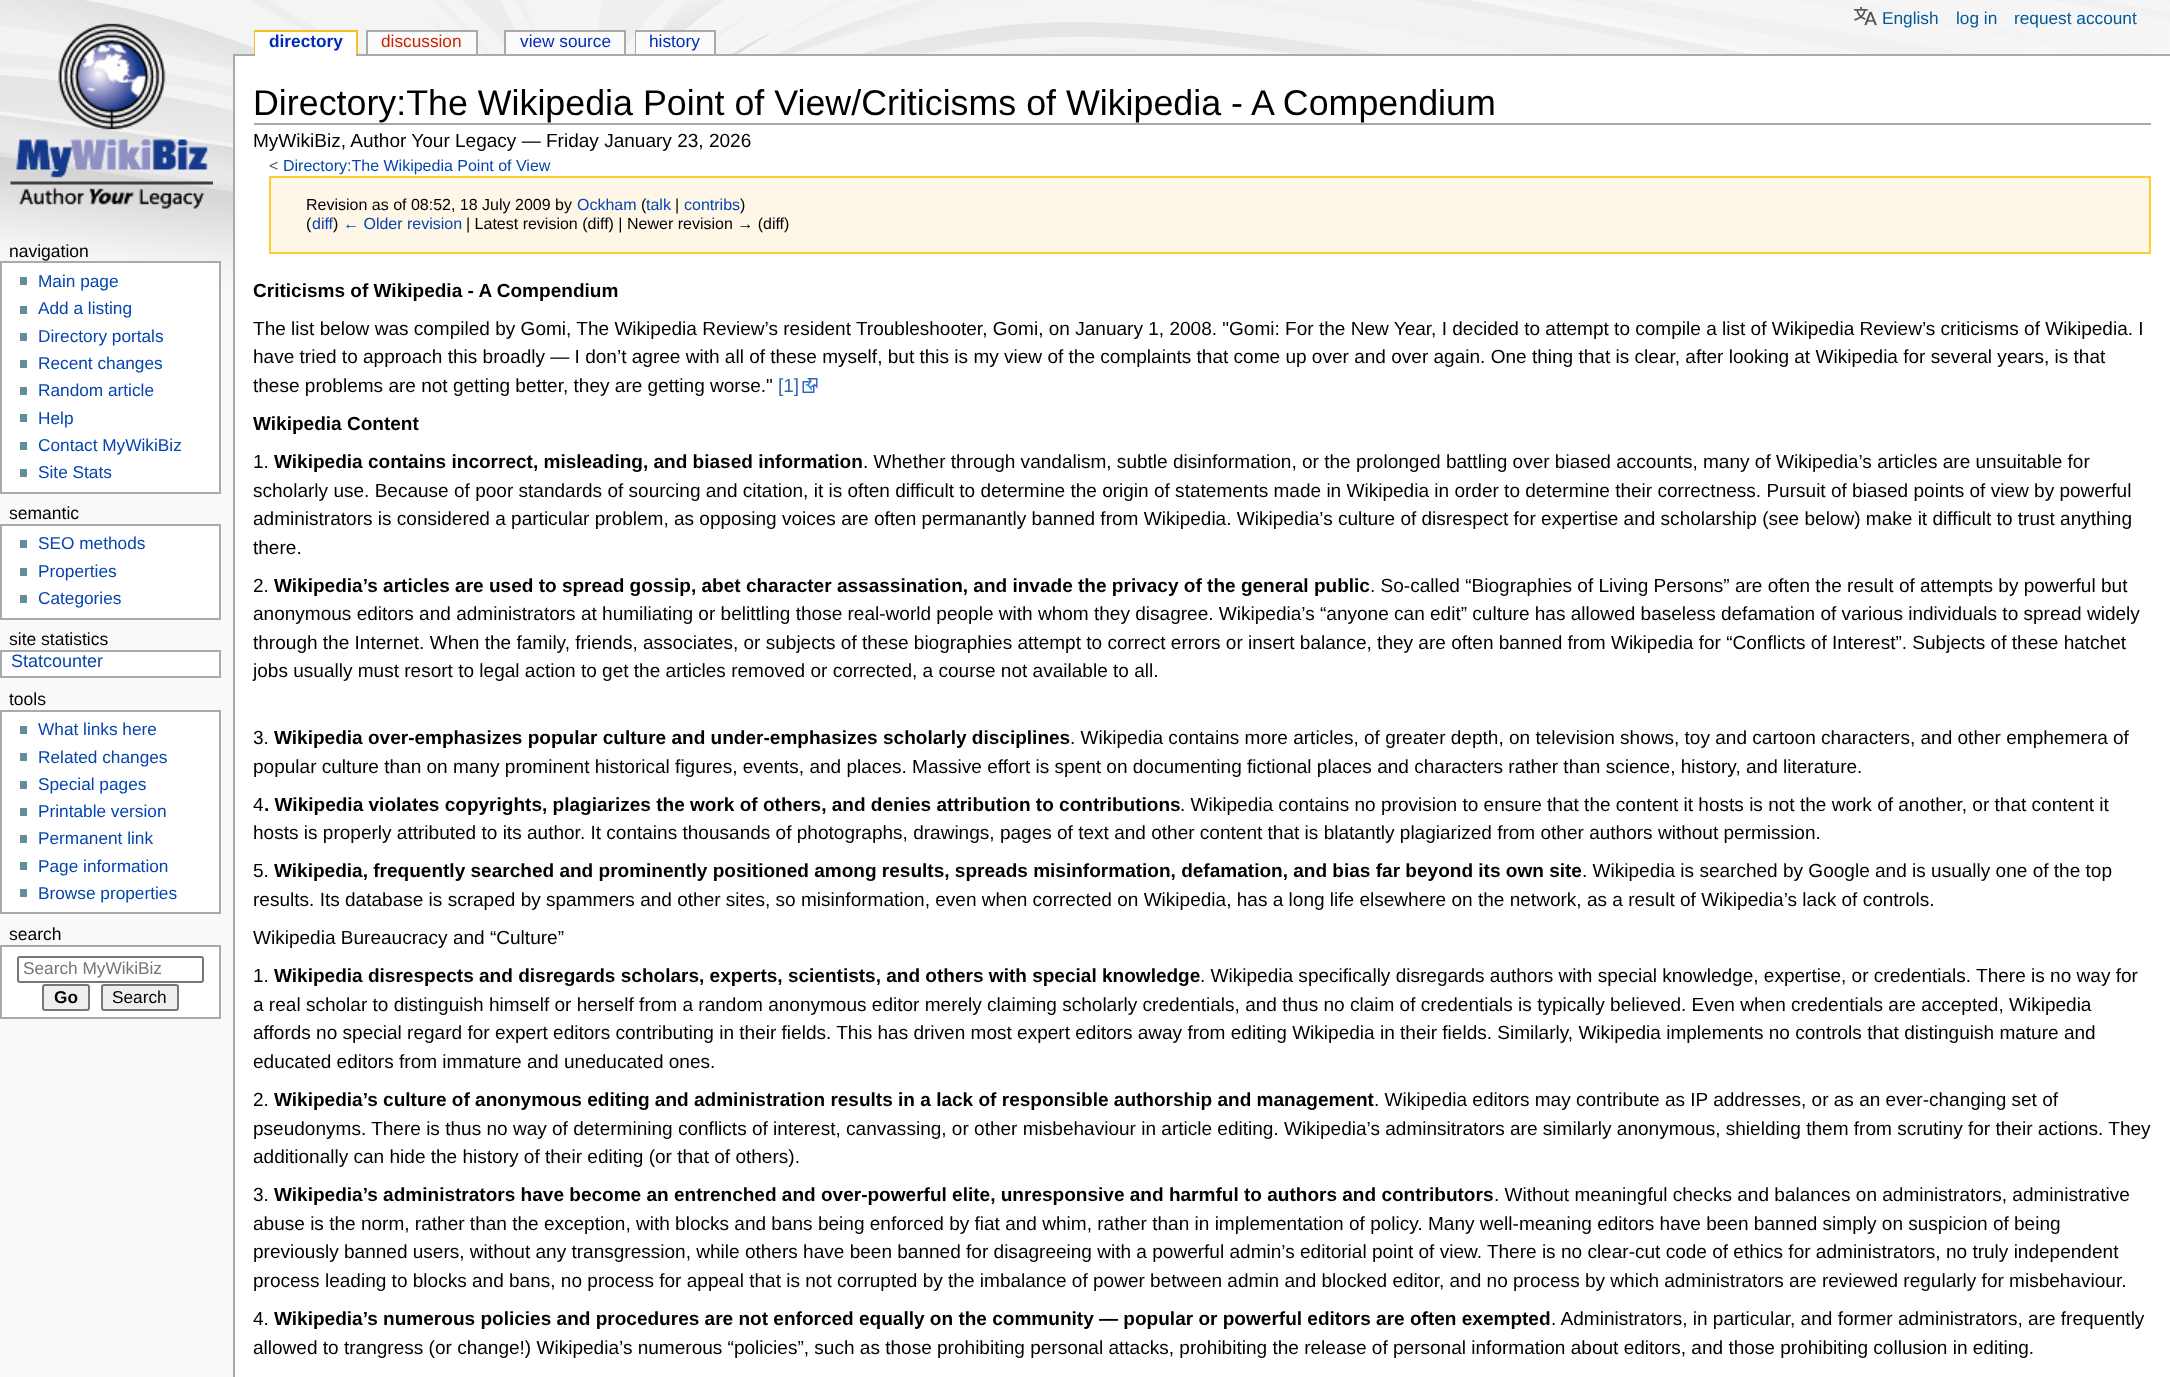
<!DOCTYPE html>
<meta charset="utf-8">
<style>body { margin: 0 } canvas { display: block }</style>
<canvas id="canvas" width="2170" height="1377"></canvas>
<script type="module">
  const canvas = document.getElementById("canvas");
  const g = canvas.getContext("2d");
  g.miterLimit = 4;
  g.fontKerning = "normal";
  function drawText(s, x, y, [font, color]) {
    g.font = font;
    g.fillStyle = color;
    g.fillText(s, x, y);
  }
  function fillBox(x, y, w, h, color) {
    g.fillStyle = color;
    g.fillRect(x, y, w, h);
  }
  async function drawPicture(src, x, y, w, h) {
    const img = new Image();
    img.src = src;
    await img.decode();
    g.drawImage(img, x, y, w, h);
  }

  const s1 = ["17.25px Liberation Sans", "#005896"];
  const s2 = ["bold 17.25px Liberation Sans", "#002BB8"];
  const s3 = ["17.25px Liberation Sans", "#CC2200"];
  const s4 = ["17.25px Liberation Sans", "#002BB8"];
  const s5 = ["17.5px Liberation Sans", "#000000"];
  const s6 = ["17.25px Liberation Sans", "#0645AD"];
  const s7 = ["18px Liberation Sans", "#0645AD"];
  const s8 = ["17.25px Liberation Sans", "#757575"];
  const s9 = ["bold 17.25px Liberation Sans", "#000000"];
  const s10 = ["17.25px Liberation Sans", "#000000"];
  const s11 = ["35.8px Liberation Sans", "#000000"];
  const s12 = ["19.05px Liberation Sans", "#000000"];
  const s13 = ["16px Liberation Sans", "#54595D"];
  const s14 = ["16px Liberation Sans", "#0645AD"];
  const s15 = ["16px Liberation Sans", "#000000"];
  const s16 = ["bold 19.05px Liberation Sans", "#000000"];
  const s17 = ["19.05px Liberation Sans", "#3366BB"];

  fillBox(0, 0, 2170, 1377, "#F9F9F9");
  await drawPicture("pic1.png", 0, 0, 2170, 315);
  await drawPicture("pic2.png", 1854, 6, 23, 20);
  drawText("English", 1882, 24, s1);
  drawText("log in", 1956, 24, s1);
  drawText("request account", 2014, 24, s1);
  await drawPicture("pic3.png", 10, 23, 203, 186);
  fillBox(254, 30, 103, 2, "#FABD23");
  fillBox(254, 30, 2, 24, "#FABD23");
  fillBox(233, 54, 1937, 2, "#AAAAAA");
  fillBox(255, 32, 101, 24, "#FFFFFF");
  drawText("directory", 269, 47, s2);
  fillBox(356, 30, 2, 24, "#FABD23");
  fillBox(368, 32, 108, 22, "#FBFBFB");
  drawText("discussion", 381, 47, s3);
  fillBox(366, 30, 111, 2, "#AAAAAA");
  fillBox(476, 30, 2, 24, "#AAAAAA");
  fillBox(366, 30, 2, 24, "#AAAAAA");
  fillBox(506, 32, 118, 22, "#FBFBFB");
  drawText("view source", 520, 47, s4);
  fillBox(504, 30, 122, 2, "#AAAAAA");
  fillBox(624, 30, 2, 24, "#AAAAAA");
  fillBox(504, 30, 2, 24, "#AAAAAA");
  fillBox(635, 30, 81, 2, "#AAAAAA");
  fillBox(635, 30, 2, 24, "#AAAAAA");
  fillBox(636, 32, 78, 22, "#FBFBFB");
  drawText("history", 649, 47, s4);
  fillBox(714, 30, 2, 24, "#AAAAAA");
  drawText("navigation", 9, 257, s5);
  g.fillStyle = "#FFFFFF";
  g.beginPath();
  g.rect(1, 262, 219, 231);
  g.fill();
  g.strokeStyle = "#AAAAAA";
  g.lineWidth = 2;
  g.stroke();
  fillBox(20, 277, 7, 8, "#638C9C");
  drawText("Main page", 38, 287, s6);
  fillBox(20, 306, 7, 8, "#638C9C");
  drawText("Add a listing", 38, 314, s6);
  fillBox(20, 333, 7, 8, "#638C9C");
  drawText("Directory portals", 38, 342, s6);
  fillBox(20, 360, 7, 8, "#638C9C");
  drawText("Recent changes", 38, 369, s6);
  fillBox(20, 387, 7, 8, "#638C9C");
  drawText("Random article", 38, 396, s6);
  fillBox(20, 414, 7, 8, "#638C9C");
  drawText("Help", 38, 424, s6);
  fillBox(20, 442, 7, 8, "#638C9C");
  drawText("Contact MyWikiBiz", 38, 451, s6);
  fillBox(20, 469, 7, 8, "#638C9C");
  drawText("Site Stats", 38, 478, s6);
  drawText("semantic", 9, 519, s5);
  g.fillStyle = "#FFFFFF";
  g.beginPath();
  g.rect(1, 525, 219, 94);
  g.fill();
  g.stroke();
  fillBox(20, 540, 7, 8, "#638C9C");
  drawText("SEO methods", 38, 549, s6);
  fillBox(20, 568, 7, 8, "#638C9C");
  drawText("Properties", 38, 577, s6);
  fillBox(20, 595, 7, 8, "#638C9C");
  drawText("Categories", 38, 604, s6);
  drawText("site statistics", 9, 645, s5);
  g.fillStyle = "#FFFFFF";
  g.beginPath();
  g.rect(1, 651, 219, 26);
  g.fill();
  g.stroke();
  drawText("Statcounter", 11, 667, s7);
  drawText("tools", 9, 705, s5);
  g.fillStyle = "#FFFFFF";
  g.beginPath();
  g.rect(1, 711, 219, 202);
  g.fill();
  g.stroke();
  fillBox(20, 726, 7, 8, "#638C9C");
  drawText("What links here", 38, 735, s6);
  fillBox(20, 753, 7, 8, "#638C9C");
  drawText("Related changes", 38, 763, s6);
  fillBox(20, 781, 7, 8, "#638C9C");
  drawText("Special pages", 38, 790, s6);
  fillBox(20, 808, 7, 8, "#638C9C");
  drawText("Printable version", 38, 817, s6);
  fillBox(20, 835, 7, 8, "#638C9C");
  drawText("Permanent link", 38, 844, s6);
  fillBox(20, 862, 7, 8, "#638C9C");
  drawText("Page information", 38, 872, s6);
  fillBox(20, 889, 7, 8, "#638C9C");
  drawText("Browse properties", 38, 899, s6);
  drawText("search", 9, 940, s5);
  g.fillStyle = "#FFFFFF";
  g.beginPath();
  g.rect(1, 946, 219, 72);
  g.fill();
  g.stroke();
  g.beginPath();
  g.roundRect(18, 957, 185, 25, 2);
  g.strokeStyle = "#767676";
  g.stroke();
  drawText("Search MyWikiBiz", 23, 974, s8);
  g.fillStyle = "#EFEFEF";
  g.beginPath();
  g.roundRect(43, 985, 46, 25, 2);
  g.fill();
  g.stroke();
  drawText("Go", 54, 1003, s9);
  g.fillStyle = "#EFEFEF";
  g.beginPath();
  g.roundRect(102, 985, 76, 25, 2);
  g.fill();
  g.stroke();
  drawText("Search", 112, 1003, s10);
  fillBox(235, 56, 1935, 1321, "#FFFFFF");
  fillBox(233, 54, 2, 1323, "#AAAAAA");
  fillBox(254, 123, 1897, 2, "#A2A9B1");
  drawText("Directory:The Wikipedia Point of View/Criticisms of Wikipedia - A Compendium", 253, 115, s11);
  drawText("MyWikiBiz, Author Your Legacy — Friday January 23, 2026", 253, 147, s12);
  drawText("<", 269, 171, s13);
  drawText("Directory:The Wikipedia Point of View", 283, 171, s14);
  g.fillStyle = "#FEF6E7";
  g.beginPath();
  g.rect(270, 177, 1880, 76);
  g.fill();
  g.strokeStyle = "#FFCC33";
  g.stroke();
  drawText("Revision as of 08:52, 18 July 2009 by", 306, 210, s15);
  drawText("Ockham", 577, 210, s14);
  drawText("(", 641, 210, s15);
  drawText("talk", 646, 210, s14);
  drawText("|", 675, 210, s15);
  drawText("contribs", 684, 210, s14);
  drawText(")", 740, 210, s15);
  drawText("(", 306, 229, s15);
  drawText("diff", 312, 229, s14);
  drawText(")", 333, 229, s15);
  drawText("← Older revision", 343, 229, s14);
  drawText("| Latest revision (diff) | Newer revision → (diff)", 466, 229, s15);
  drawText("Criticisms of Wikipedia - A Compendium", 253, 297, s16);
  drawText("The list below was compiled by Gomi, The Wikipedia Review’s resident Troubleshooter, Gomi, on January 1, 2008. \"Gomi: For the New Year, I decided to attempt to compile a list of Wikipedia Review’s criticisms of Wikipedia. I", 253, 335, s12);
  drawText("have tried to approach this broadly — I don’t agree with all of these myself, but this is my view of the complaints that come up over and over again. One thing that is clear, after looking at Wikipedia for several years, is that", 253, 363, s12);
  drawText("these problems are not getting better, they are getting worse.\"", 253, 392, s12);
  drawText("[1]", 778, 392, s17);
  await drawPicture("pic4.png", 802, 378, 16, 15);
  drawText("Wikipedia Content", 253, 430, s16);
  drawText("1.", 253, 468, s12);
  drawText("Wikipedia contains incorrect, misleading, and biased information", 274, 468, s16);
  drawText(". Whether through vandalism, subtle disinformation, or the prolonged battling over biased accounts, many of Wikipedia’s articles are unsuitable for", 863, 468, s12);
  drawText("scholarly use. Because of poor standards of sourcing and citation, it is often difficult to determine the origin of statements made in Wikipedia in order to determine their correctness. Pursuit of biased points of view by powerful", 253, 497, s12);
  drawText("administrators is considered a particular problem, as opposing voices are often permanantly banned from Wikipedia. Wikipedia’s culture of disrespect for expertise and scholarship (see below) make it difficult to trust anything", 253, 525, s12);
  drawText("there.", 253, 554, s12);
  drawText("2.", 253, 592, s12);
  drawText("Wikipedia’s articles are used to spread gossip, abet character assassination, and invade the privacy of the general public", 274, 592, s16);
  drawText(". So-called “Biographies of Living Persons” are often the result of attempts by powerful but", 1370, 592, s12);
  drawText("anonymous editors and administrators at humiliating or belittling those real-world people with whom they disagree. Wikipedia’s “anyone can edit” culture has allowed baseless defamation of various individuals to spread widely", 253, 620, s12);
  drawText("through the Internet. When the family, friends, associates, or subjects of these biographies attempt to correct errors or insert balance, they are often banned from Wikipedia for “Conflicts of Interest”. Subjects of these hatchet", 253, 649, s12);
  drawText("jobs usually must resort to legal action to get the articles removed or corrected, a course not available to all.", 253, 677, s12);
  drawText("3.", 253, 744, s12);
  drawText("Wikipedia over-emphasizes popular culture and under-emphasizes scholarly disciplines", 274, 744, s16);
  drawText(". Wikipedia contains more articles, of greater depth, on television shows, toy and cartoon characters, and other emphemera of", 1070, 744, s12);
  drawText("popular culture than on many prominent historical figures, events, and places. Massive effort is spent on documenting fictional places and characters rather than science, history, and literature.", 253, 773, s12);
  drawText("4", 253, 811, s12);
  drawText(". Wikipedia violates copyrights, plagiarizes the work of others, and denies attribution to contributions", 264, 811, s16);
  drawText(". Wikipedia contains no provision to ensure that the content it hosts is not the work of another, or that content it", 1180, 811, s12);
  drawText("hosts is properly attributed to its author. It contains thousands of photographs, drawings, pages of text and other content that is blatantly plagiarized from other authors without permission.", 253, 839, s12);
  drawText("5.", 253, 877, s12);
  drawText("Wikipedia, frequently searched and prominently positioned among results, spreads misinformation, defamation, and bias far beyond its own site", 274, 877, s16);
  drawText(". Wikipedia is searched by Google and is usually one of the top", 1582, 877, s12);
  drawText("results. Its database is scraped by spammers and other sites, so misinformation, even when corrected on Wikipedia, has a long life elsewhere on the network, as a result of Wikipedia’s lack of controls.", 253, 906, s12);
  drawText("Wikipedia Bureaucracy and “Culture”", 253, 944, s12);
  drawText("1.", 253, 982, s12);
  drawText("Wikipedia disrespects and disregards scholars, experts, scientists, and others with special knowledge", 274, 982, s16);
  drawText(". Wikipedia specifically disregards authors with special knowledge, expertise, or credentials. There is no way for", 1200, 982, s12);
  drawText("a real scholar to distinguish himself or herself from a random anonymous editor merely claiming scholarly credentials, and thus no claim of credentials is typically believed. Even when credentials are accepted, Wikipedia", 253, 1011, s12);
  drawText("affords no special regard for expert editors contributing in their fields. This has driven most expert editors away from editing Wikipedia in their fields. Similarly, Wikipedia implements no controls that distinguish mature and", 253, 1039, s12);
  drawText("educated editors from immature and uneducated ones.", 253, 1068, s12);
  drawText("2.", 253, 1106, s12);
  drawText("Wikipedia’s culture of anonymous editing and administration results in a lack of responsible authorship and management", 274, 1106, s16);
  drawText(". Wikipedia editors may contribute as IP addresses, or as an ever-changing set of", 1374, 1106, s12);
  drawText("pseudonyms. There is thus no way of determining conflicts of interest, canvassing, or other misbehaviour in article editing. Wikipedia’s adminsitrators are similarly anonymous, shielding them from scrutiny for their actions. They", 253, 1135, s12);
  drawText("additionally can hide the history of their editing (or that of others).", 253, 1163, s12);
  drawText("3.", 253, 1201, s12);
  drawText("Wikipedia’s administrators have become an entrenched and over-powerful elite, unresponsive and harmful to authors and contributors", 274, 1201, s16);
  drawText(". Without meaningful checks and balances on administrators, administrative", 1494, 1201, s12);
  drawText("abuse is the norm, rather than the exception, with blocks and bans being enforced by fiat and whim, rather than in implementation of policy. Many well-meaning editors have been banned simply on suspicion of being", 253, 1230, s12);
  drawText("previously banned users, without any transgression, while others have been banned for disagreeing with a powerful admin’s editorial point of view. There is no clear-cut code of ethics for administrators, no truly independent", 253, 1258, s12);
  drawText("process leading to blocks and bans, no process for appeal that is not corrupted by the imbalance of power between admin and blocked editor, and no process by which administrators are reviewed regularly for misbehaviour.", 253, 1287, s12);
  drawText("4.", 253, 1325, s12);
  drawText("Wikipedia’s numerous policies and procedures are not enforced equally on the community — popular or powerful editors are often exempted", 274, 1325, s16);
  drawText(". Administrators, in particular, and former administrators, are frequently", 1551, 1325, s12);
  drawText("allowed to trangress (or change!) Wikipedia’s numerous “policies”, such as those prohibiting personal attacks, prohibiting the release of personal information about editors, and those prohibiting collusion in editing.", 253, 1354, s12);
</script>
